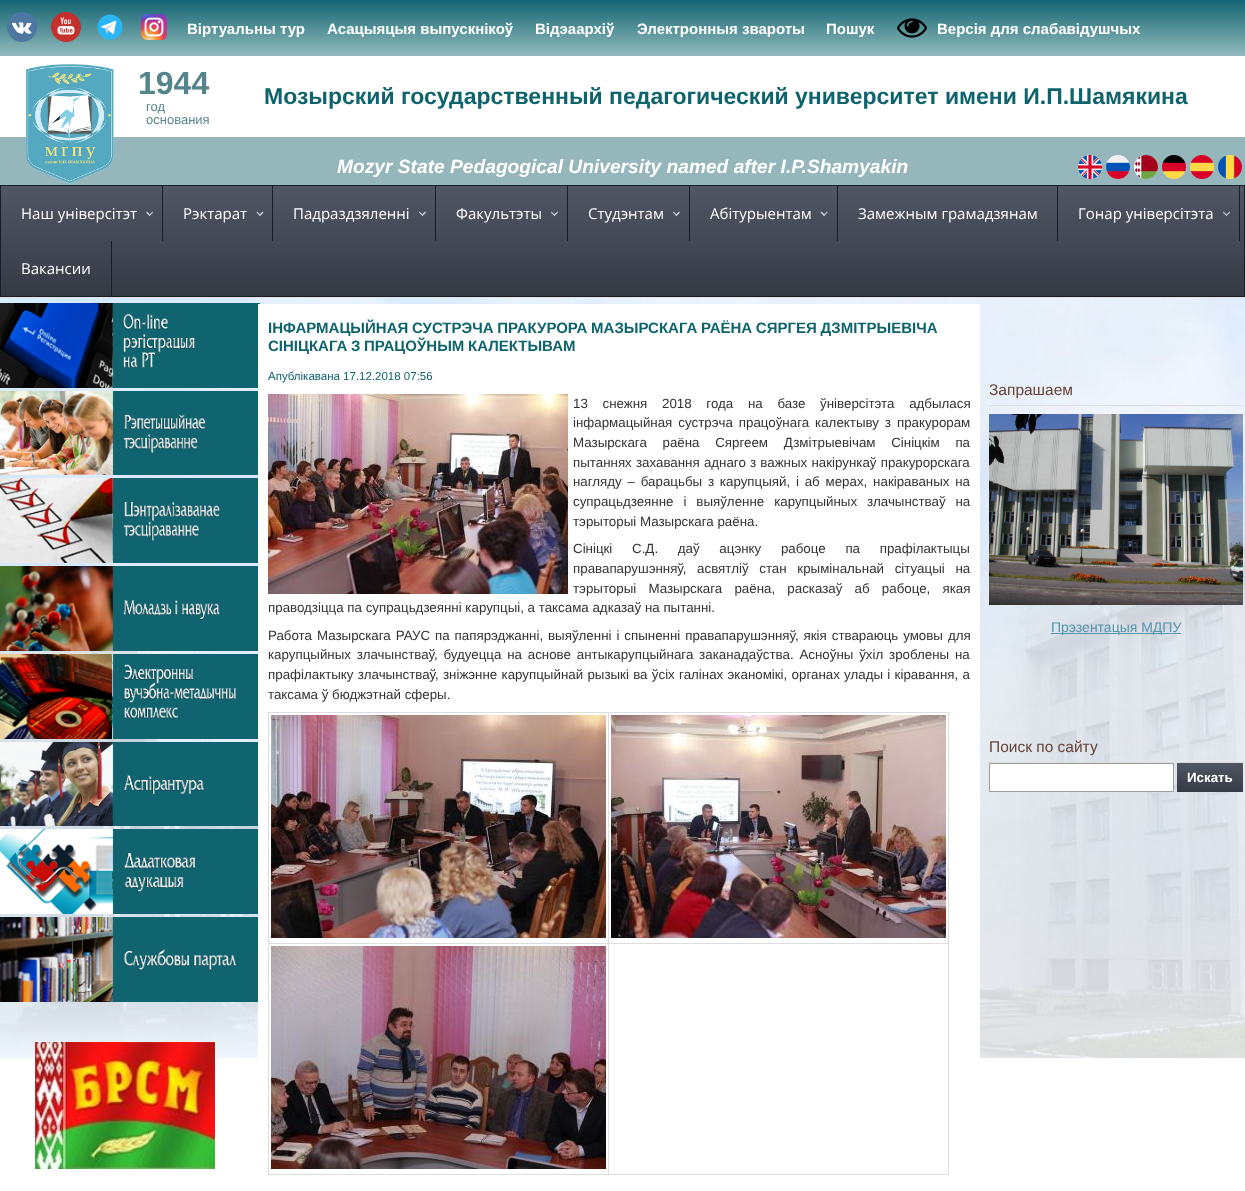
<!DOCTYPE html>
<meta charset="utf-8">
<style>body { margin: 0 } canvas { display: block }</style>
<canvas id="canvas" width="1245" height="1191"></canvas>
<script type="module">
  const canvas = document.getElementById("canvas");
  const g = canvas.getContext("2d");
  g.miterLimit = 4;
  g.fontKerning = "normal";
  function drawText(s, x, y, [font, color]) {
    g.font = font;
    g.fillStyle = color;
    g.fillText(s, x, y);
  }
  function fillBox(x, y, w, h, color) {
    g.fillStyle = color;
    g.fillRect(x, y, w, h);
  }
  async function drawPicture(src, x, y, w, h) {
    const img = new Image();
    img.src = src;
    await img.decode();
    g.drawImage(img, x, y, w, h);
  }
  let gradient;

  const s1 = ["bold 15px Liberation Sans", "#FFFFFF"];
  const s2 = ["bold 32px Liberation Sans", "#55848A"];
  const s3 = ["13px Liberation Sans", "#55848A"];
  const s4 = ["bold 23px Liberation Sans", "#0E636C"];
  const s5 = ["italic bold 19.2px Liberation Sans", "#FFFFFF"];
  const s6 = ["15px Open Sans", "#FFFFFF"];
  const s7 = ["bold 15px Liberation Sans", "#0E636C"];
  const s8 = ["11.5px Liberation Sans", "#0E636C"];
  const s9 = ["13.33px Liberation Sans", "#333333"];
  const s10 = ["15.5px Liberation Sans", "#664335"];
  const s11 = ["14px Liberation Sans", "#5594AD"];
  const s12 = ["bold 13.33px Liberation Sans", "#FFFFFF"];

  fillBox(0, 0, 1245, 1191, "#FFFFFF");
  await drawPicture("pic1.png", 0, 297, 1245, 762);
  gradient = g.createLinearGradient(623, 0, 623, 56);
  gradient.addColorStop(0, "#126470");
  gradient.addColorStop(1, "#92BBBD");
  g.fillStyle = gradient;
  g.fillRect(0, 0, 1245, 56);
  await drawPicture("pic2.png", 7, 12, 30, 30);
  await drawPicture("pic3.png", 51, 12, 30, 30);
  await drawPicture("pic4.png", 97, 14, 26, 26);
  await drawPicture("pic5.png", 141, 14, 26, 26);
  drawText("Віртуальны тур", 187, 34, s1);
  drawText("Асацыяцыя выпускнікоў", 327, 34, s1);
  drawText("Відэаархіў", 535, 34, s1);
  drawText("Электронныя звароты", 637, 34, s1);
  drawText("Пошук", 826, 34, s1);
  await drawPicture("pic6.png", 897, 18, 30, 20);
  drawText("Версія для слабавідушчых", 937, 34, s1);
  fillBox(0, 137, 1245, 48, "#95B6BB");
  await drawPicture("pic7.png", 26, 64, 88, 120);
  drawText("1944", 138, 94, s2);
  drawText("год", 146, 111, s3);
  drawText("основания", 146, 124, s3);
  drawText("Мозырский государственный педагогический университет имени И.П.Шамякина", 264, 104, s4);
  drawText("Mozyr State Pedagogical University named after I.P.Shamyakin", 337, 173, s5);
  await drawPicture("pic8.png", 1078, 155, 24, 24);
  await drawPicture("pic9.png", 1106, 155, 24, 24);
  await drawPicture("pic10.png", 1134, 155, 24, 24);
  await drawPicture("pic11.png", 1162, 155, 24, 24);
  await drawPicture("pic12.png", 1190, 155, 24, 24);
  await drawPicture("pic13.png", 1218, 155, 24, 24);
  g.fillStyle = "#E2E2E2";
  g.filter = "blur(0.5px)";
  g.beginPath();
  g.rect(0, 186, 1245, 112);
  g.fill();
  g.filter = "none";
  gradient = g.createLinearGradient(623, 186, 623, 296);
  gradient.addColorStop(0, "#505664");
  gradient.addColorStop(1, "#363A45");
  g.fillStyle = gradient;
  g.fillRect(1, 186, 1243, 110);
  g.strokeStyle = "#171E26";
  g.strokeRect(0.5, 185.5, 1244, 111);
  fillBox(162, 186, 1, 55, "#171E28");
  drawText("Наш універсітэт", 21, 219, s6);
  g.fillStyle = "#CED4E4";
  g.beginPath();
  g.moveTo(152.5, 211.5);
  g.lineTo(153, 212.5);
  g.lineTo(149.5, 216);
  g.lineTo(149, 215);
  g.closePath();
  g.fill();
  g.beginPath();
  g.moveTo(147, 211.5);
  g.lineTo(150.5, 215);
  g.lineTo(149.5, 216);
  g.lineTo(146, 212.5);
  g.closePath();
  g.fill();
  fillBox(272, 186, 1, 55, "#171E28");
  drawText("Рэктарат", 183, 219, s6);
  g.fillStyle = "#CED4E4";
  g.beginPath();
  g.moveTo(262.5, 211.5);
  g.lineTo(263.5, 212.5);
  g.lineTo(260, 216);
  g.lineTo(259, 215);
  g.closePath();
  g.fill();
  g.beginPath();
  g.moveTo(257, 211.5);
  g.lineTo(260.5, 215);
  g.lineTo(260, 216);
  g.lineTo(256.5, 212.5);
  g.closePath();
  g.fill();
  fillBox(435, 186, 1, 55, "#171E28");
  drawText("Падраздзяленні", 293, 219, s6);
  g.fillStyle = "#CED4E4";
  g.beginPath();
  g.moveTo(425, 211.5);
  g.lineTo(426, 212.5);
  g.lineTo(422.5, 216);
  g.lineTo(421.5, 215);
  g.closePath();
  g.fill();
  g.beginPath();
  g.moveTo(419.5, 211.5);
  g.lineTo(423, 215);
  g.lineTo(422.5, 216);
  g.lineTo(419, 212.5);
  g.closePath();
  g.fill();
  fillBox(567, 186, 1, 55, "#171E28");
  drawText("Факультэты", 456, 219, s6);
  g.fillStyle = "#CED4E4";
  g.beginPath();
  g.moveTo(557.5, 211.5);
  g.lineTo(558, 212.5);
  g.lineTo(554.5, 216);
  g.lineTo(553.5, 215);
  g.closePath();
  g.fill();
  g.beginPath();
  g.moveTo(551.5, 211.5);
  g.lineTo(555, 215);
  g.lineTo(554.5, 216);
  g.lineTo(551, 212.5);
  g.closePath();
  g.fill();
  fillBox(689, 186, 1, 55, "#171E28");
  drawText("Студэнтам", 588, 219, s6);
  g.fillStyle = "#CED4E4";
  g.beginPath();
  g.moveTo(679, 211.5);
  g.lineTo(680, 212.5);
  g.lineTo(676.5, 216);
  g.lineTo(675.5, 215);
  g.closePath();
  g.fill();
  g.beginPath();
  g.moveTo(673.5, 211.5);
  g.lineTo(677, 215);
  g.lineTo(676.5, 216);
  g.lineTo(673, 212.5);
  g.closePath();
  g.fill();
  fillBox(837, 186, 1, 55, "#171E28");
  drawText("Абітурыентам", 710, 219, s6);
  g.fillStyle = "#CED4E4";
  g.beginPath();
  g.moveTo(827, 211.5);
  g.lineTo(827.5, 212.5);
  g.lineTo(824, 216);
  g.lineTo(823.5, 215);
  g.closePath();
  g.fill();
  g.beginPath();
  g.moveTo(821.5, 211.5);
  g.lineTo(825, 215);
  g.lineTo(824, 216);
  g.lineTo(820.5, 212.5);
  g.closePath();
  g.fill();
  fillBox(1057, 186, 1, 55, "#171E28");
  drawText("Замежным грамадзянам", 858, 219, s6);
  fillBox(1239, 186, 1, 55, "#171E28");
  drawText("Гонар універсітэта", 1078, 219, s6);
  g.fillStyle = "#CED4E4";
  g.beginPath();
  g.moveTo(1229.5, 211.5);
  g.lineTo(1230, 212.5);
  g.lineTo(1226.5, 216);
  g.lineTo(1226, 215);
  g.closePath();
  g.fill();
  g.beginPath();
  g.moveTo(1223.5, 211.5);
  g.lineTo(1227, 215);
  g.lineTo(1226.5, 216);
  g.lineTo(1223, 212.5);
  g.closePath();
  g.fill();
  fillBox(111, 241, 1, 55, "#171E28");
  drawText("Вакансии", 21, 274, s6);
  await drawPicture("pic14.png", 0, 303, 260, 85);
  await drawPicture("pic15.png", 0, 391, 258, 84);
  await drawPicture("pic16.png", 0, 478, 258, 85);
  await drawPicture("pic17.png", 0, 566, 258, 85);
  await drawPicture("pic18.png", 0, 654, 258, 85);
  await drawPicture("pic19.png", 0, 742, 258, 84);
  await drawPicture("pic20.png", 0, 829, 258, 85);
  await drawPicture("pic21.png", 0, 917, 258, 85);
  await drawPicture("pic22.png", 35, 1042, 180, 127);
  fillBox(258, 304, 722, 755, "#FFFFFF");
  g.wordSpacing = "-0.5px";
  drawText("ІНФАРМАЦЫЙНАЯ СУСТРЭЧА ПРАКУРОРА МАЗЫРСКАГА РАЁНА СЯРГЕЯ ДЗМІТРЫЕВІЧА", 268, 333, s7);
  drawText("СІНІЦКАГА З ПРАЦОЎНЫМ КАЛЕКТЫВАМ", 268, 351, s7);
  g.wordSpacing = "0px";
  drawText("Апублікавана 17.12.2018 07:56", 268, 380, s8);
  await drawPicture("pic23.png", 268, 394, 300, 200);
  g.wordSpacing = "11px";
  drawText("13 снежня 2018 года на базе ўніверсітэта адбылася", 573, 408, s9);
  g.wordSpacing = "2.25px";
  drawText("інфармацыйная сустрэча працоўнага калектыву з пракурорам", 573, 427, s9);
  g.wordSpacing = "12px";
  drawText("Мазырскага раёна Сяргеем Дзмітрыевічам Сініцкім па", 573, 447, s9);
  g.wordSpacing = "0.5px";
  drawText("пытаннях захавання аднаго з важных накірункаў пракурорскага", 573, 467, s9);
  g.wordSpacing = "2.1px";
  drawText("нагляду – барацьбы з карупцыяй, і аб мерах, накіраваных на", 573, 486, s9);
  g.wordSpacing = "6.25px";
  drawText("супрацьдзеянне і выяўленне карупцыйных злачынстваў на", 573, 506, s9);
  g.wordSpacing = "0px";
  drawText("тэрыторыі Мазырскага раёна.", 573, 526, s9);
  g.wordSpacing = "16px";
  drawText("Сініцкі С.Д. даў ацэнку рабоце па прафілактыцы", 573, 553, s9);
  g.wordSpacing = "7px";
  drawText("правапарушэнняў, асвятліў стан крымінальнай сітуацыі на", 573, 573, s9);
  g.wordSpacing = "8.5px";
  drawText("тэрыторыі Мазырскага раёна, расказаў аб рабоце, якая", 573, 593, s9);
  g.wordSpacing = "0px";
  drawText("праводзіцца па супрацьдзеянні карупцыі, а таксама адказаў на пытанні.", 268, 612, s9);
  g.wordSpacing = "1.25px";
  drawText("Работа Мазырскага РАУС па папярэджанні, выяўленні і спыненні правапарушэнняў, якія ствараюць умовы для", 268, 640, s9);
  g.wordSpacing = "2.1px";
  drawText("карупцыйных злачынстваў, будуецца на аснове антыкарупцыйнага заканадаўства. Асноўны ўхіл зроблены на", 268, 659, s9);
  g.wordSpacing = "0.6px";
  drawText("прафілактыку злачынстваў, зніжэнне карупцыйнай рызыкі ва ўсіх галінах эканомікі, органах улады і кіравання, а", 268, 679, s9);
  g.wordSpacing = "0px";
  drawText("таксама ў бюджэтнай сферы.", 268, 699, s9);
  fillBox(268, 712, 681, 1, "#DDDDDD");
  fillBox(948, 712, 1, 463, "#DDDDDD");
  fillBox(268, 1174, 681, 1, "#DDDDDD");
  fillBox(268, 712, 1, 463, "#DDDDDD");
  fillBox(268, 943, 681, 1, "#DDDDDD");
  fillBox(608, 712, 1, 463, "#DDDDDD");
  await drawPicture("pic24.png", 271, 946, 335, 223);
  await drawPicture("pic25.png", 271, 715, 335, 223);
  await drawPicture("pic26.png", 611, 715, 335, 223);
  fillBox(989, 405, 254, 1, "#DDDDDD");
  drawText("Запрашаем", 989, 395, s10);
  await drawPicture("pic27.png", 989, 414, 254, 191);
  fillBox(1051, 633, 130, 1, "#5594AD");
  drawText("Прэзентацыя МДПУ", 1051, 632, s11);
  fillBox(989, 762, 254, 1, "#DDDDDD");
  drawText("Поиск по сайту", 989, 752, s10);
  g.fillStyle = "#FFFFFF";
  g.beginPath();
  g.rect(989.5, 763.5, 184, 28);
  g.fill();
  g.strokeStyle = "#9C9C9C";
  g.stroke();
  gradient = g.createLinearGradient(1210, 763, 1210, 792);
  gradient.addColorStop(0, "#505664");
  gradient.addColorStop(1, "#363A45");
  g.fillStyle = gradient;
  g.fillRect(1177, 763, 66, 29);
  drawText("Искать", 1187, 782, s12);
</script>
